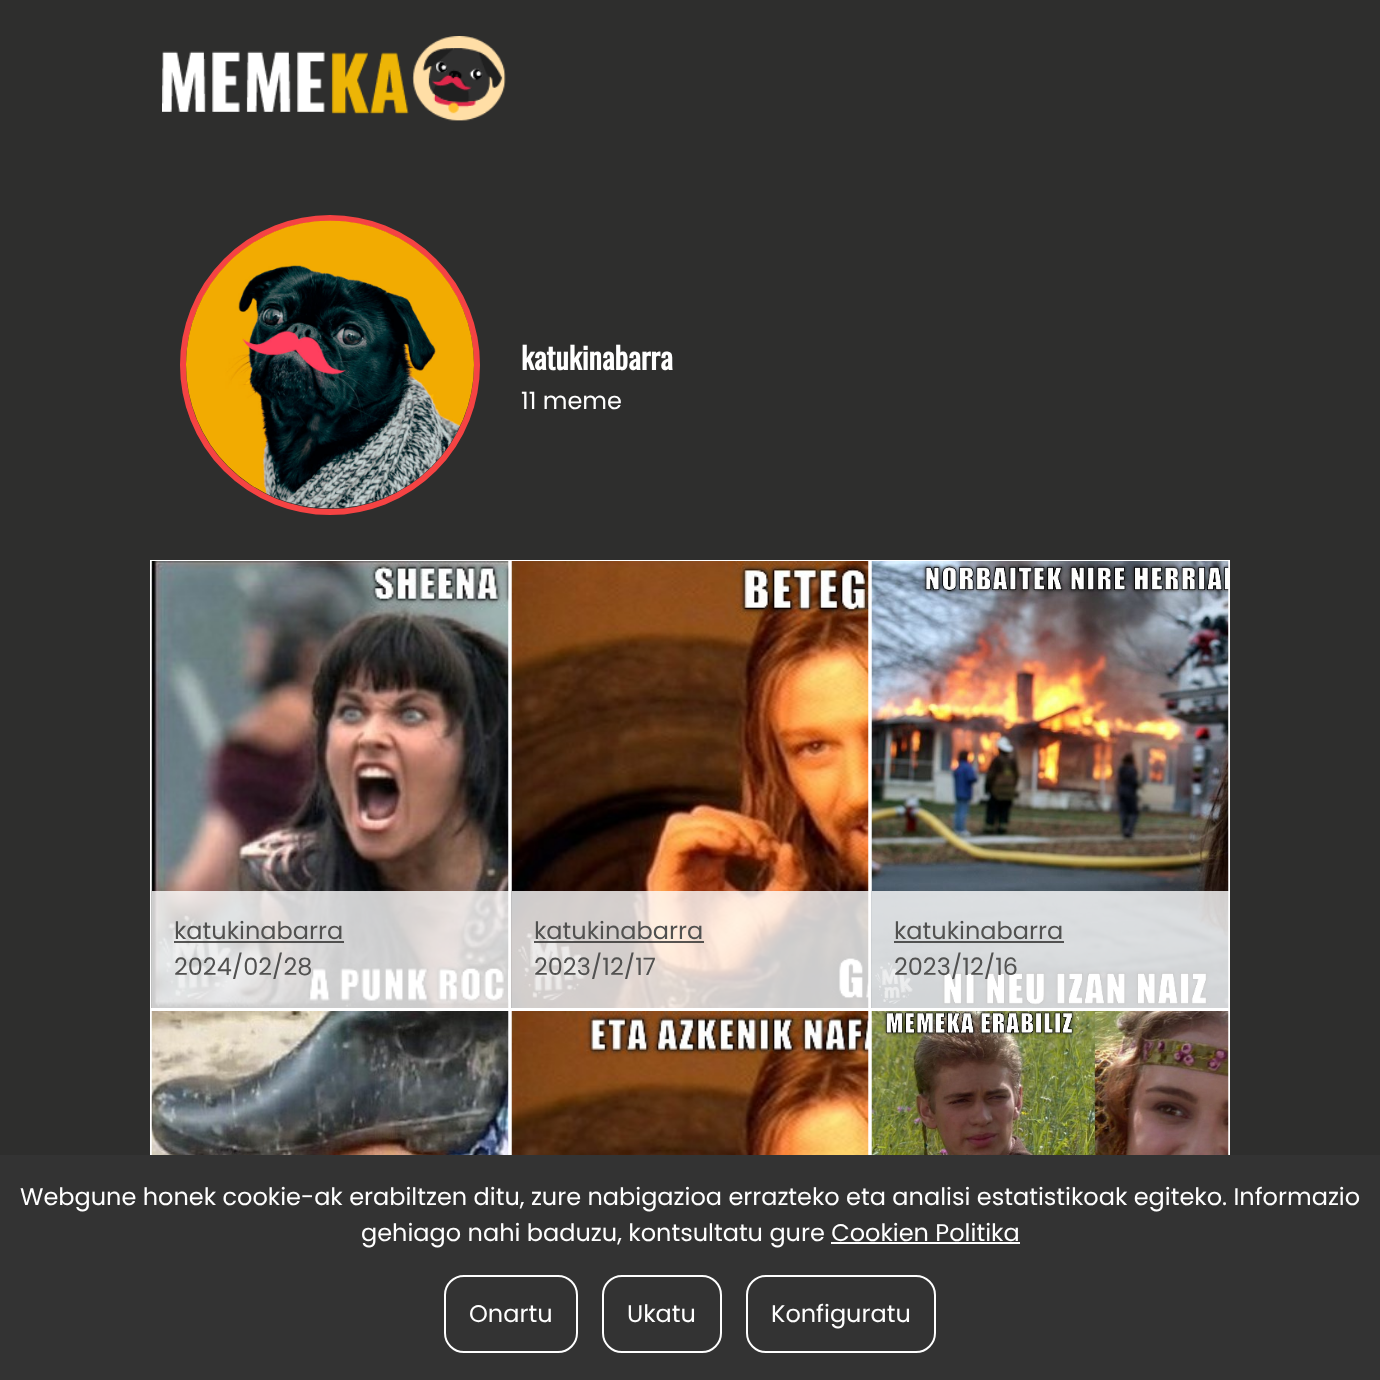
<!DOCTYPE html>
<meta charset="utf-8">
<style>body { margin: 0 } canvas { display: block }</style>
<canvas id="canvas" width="1380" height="1380"></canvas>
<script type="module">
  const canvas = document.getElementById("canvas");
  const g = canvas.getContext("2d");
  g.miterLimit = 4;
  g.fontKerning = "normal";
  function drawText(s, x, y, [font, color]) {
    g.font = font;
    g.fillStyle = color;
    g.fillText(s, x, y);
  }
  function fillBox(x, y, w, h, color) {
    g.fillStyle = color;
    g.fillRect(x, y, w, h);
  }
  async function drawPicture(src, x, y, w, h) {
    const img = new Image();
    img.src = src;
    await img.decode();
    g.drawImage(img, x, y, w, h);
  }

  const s1 = ["bold 30px Oswald", "#FFFFFF"];
  const s2 = ["24px Poppins", "#FFFFFF"];
  const s3 = ["24px Poppins", "#515150"];

  fillBox(0, 0, 1380, 1380, "#2E2E2D");
  await drawPicture("pic1.png", 162, 36, 344, 85);
  g.beginPath();
  g.arc(330, 365, 147, 0, Math.PI * 2);
  g.strokeStyle = "#F54343";
  g.lineWidth = 6;
  g.stroke();
  await drawPicture("pic2.png", 186, 220, 288, 289);
  drawText("katukinabarra", 521, 370, s1);
  drawText("11 meme", 521, 409, s2);
  fillBox(150, 560, 1080, 450, "#FFFFFF");
  await drawPicture("pic3.png", 151, 561, 358, 447);
  fillBox(152, 891, 357, 117, "rgba(255, 255, 255, 0.8)");
  drawText("katukinabarra", 174, 939, s3);
  fillBox(174, 941, 170, 2, "rgba(46, 46, 45, 0.8)");
  drawText("2024/02/28", 174, 975, s3);
  await drawPicture("pic4.png", 511, 561, 358, 447);
  fillBox(512, 891, 357, 117, "rgba(255, 255, 255, 0.8)");
  drawText("katukinabarra", 534, 939, s3);
  fillBox(534, 941, 170, 2, "rgba(46, 46, 45, 0.8)");
  drawText("2023/12/17", 534, 975, s3);
  await drawPicture("pic5.png", 871, 561, 358, 447);
  fillBox(872, 891, 357, 117, "rgba(255, 255, 255, 0.8)");
  drawText("katukinabarra", 894, 939, s3);
  fillBox(894, 941, 170, 2, "rgba(46, 46, 45, 0.8)");
  drawText("2023/12/16", 894, 975, s3);
  fillBox(150, 1010, 1080, 145, "#FFFFFF");
  await drawPicture("pic6.png", 151, 1011, 358, 144);
  await drawPicture("pic7.png", 511, 1011, 358, 144);
  await drawPicture("pic8.png", 871, 1011, 358, 144);
  fillBox(0, 1155, 1380, 225, "#333333");
  drawText("Webgune honek cookie-ak erabiltzen ditu, zure nabigazioa errazteko eta analisi estatistikoak egiteko. Informazio", 20, 1205, s2);
  drawText("gehiago nahi baduzu, kontsultatu gure Cookien Politika", 361, 1241, s2);
  fillBox(831, 1242, 189, 2, "#FFFFFF");
  g.beginPath();
  g.roundRect(445, 1276, 132, 76, 19);
  g.strokeStyle = "#FFFFFF";
  g.lineWidth = 2;
  g.stroke();
  drawText("Onartu", 469, 1322, s2);
  g.beginPath();
  g.roundRect(603, 1276, 118, 76, 19);
  g.stroke();
  drawText("Ukatu", 627, 1322, s2);
  g.beginPath();
  g.roundRect(747, 1276, 188, 76, 19);
  g.stroke();
  drawText("Konfiguratu", 771, 1322, s2);
</script>
